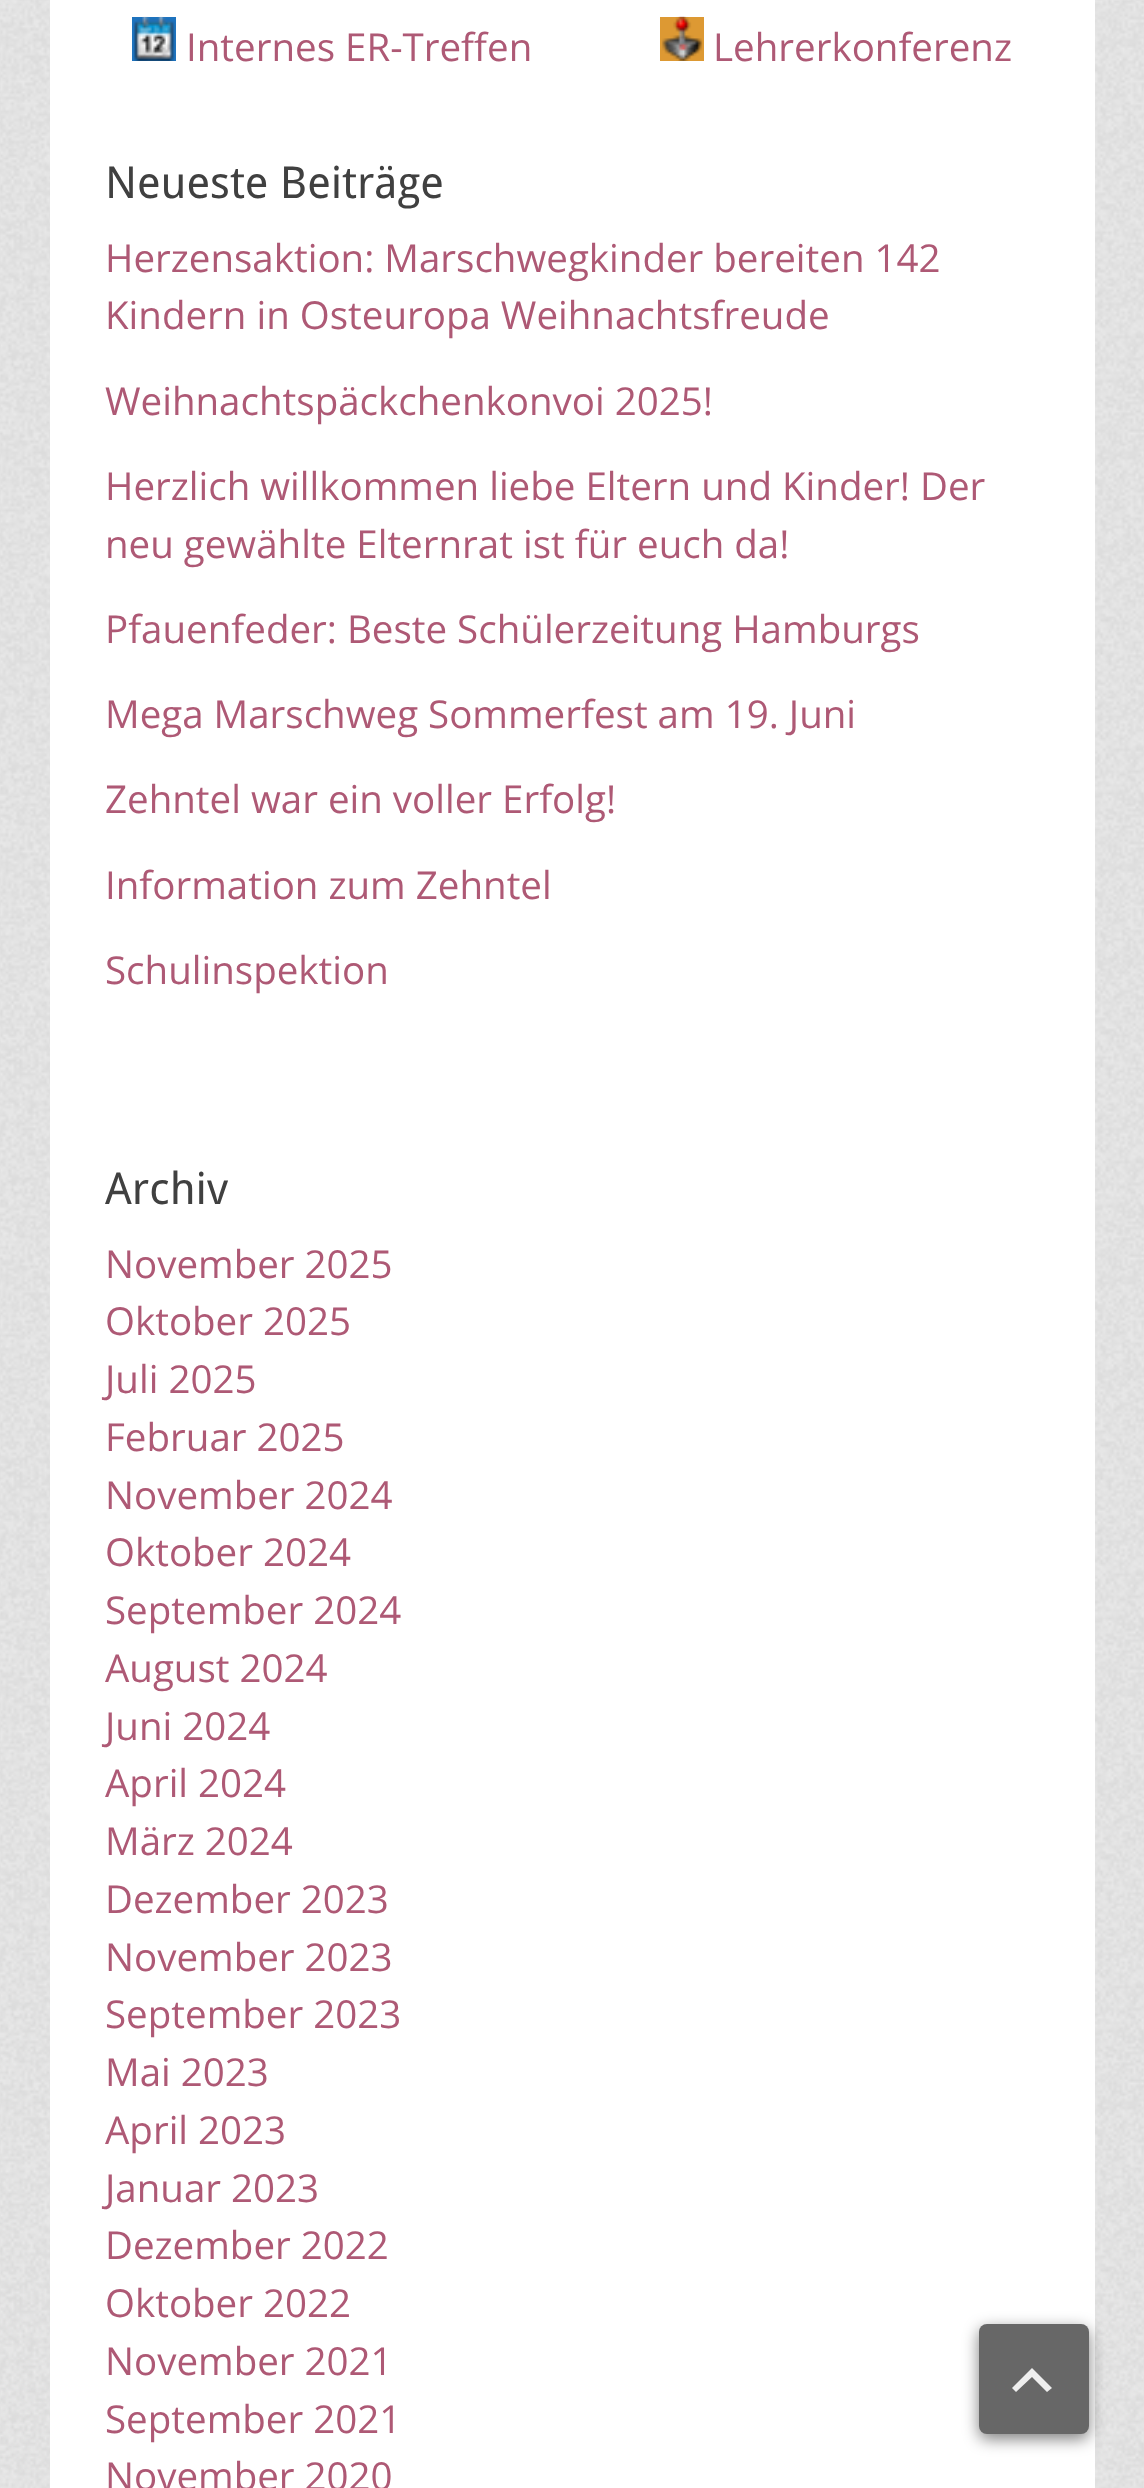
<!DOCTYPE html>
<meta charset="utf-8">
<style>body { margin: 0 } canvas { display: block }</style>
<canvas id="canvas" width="1144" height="2488"></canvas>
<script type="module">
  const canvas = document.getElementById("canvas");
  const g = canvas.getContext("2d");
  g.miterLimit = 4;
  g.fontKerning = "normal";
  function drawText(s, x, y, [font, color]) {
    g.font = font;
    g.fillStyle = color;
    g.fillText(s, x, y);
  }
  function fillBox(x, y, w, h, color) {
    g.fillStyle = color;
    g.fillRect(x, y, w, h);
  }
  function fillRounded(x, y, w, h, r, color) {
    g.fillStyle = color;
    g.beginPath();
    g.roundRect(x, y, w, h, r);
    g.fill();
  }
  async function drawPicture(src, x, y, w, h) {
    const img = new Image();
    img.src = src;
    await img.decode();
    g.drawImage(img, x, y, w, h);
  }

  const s1 = ["38.5px Open Sans", "#AE5975"];
  const s2 = ["44px Droid Sans", "#404040"];

  fillBox(0, 0, 1144, 2488, "#FFFFFF");
  await drawPicture("pic1.png", 0, 0, 1144, 2488);
  fillBox(50, 0, 1045, 2488, "#FFFFFF");
  fillBox(132, 17, 44, 44, "#1E73BE");
  await drawPicture("pic2.png", 134, 16, 41, 45);
  drawText("Internes ER-Treffen", 186, 61, s1);
  fillBox(660, 17, 44, 44, "#DD9933");
  await drawPicture("pic3.png", 662, 16, 41, 45);
  drawText("Lehrerkonferenz", 713, 61, s1);
  drawText("Neueste Beiträge", 105, 198, s2);
  drawText("Herzensaktion: Marschwegkinder bereiten 142", 105, 272, s1);
  drawText("Kindern in Osteuropa Weihnachtsfreude", 105, 329, s1);
  drawText("Weihnachtspäckchenkonvoi 2025!", 105, 415, s1);
  drawText("Herzlich willkommen liebe Eltern und Kinder! Der", 105, 500, s1);
  drawText("neu gewählte Elternrat ist für euch da!", 105, 558, s1);
  drawText("Pfauenfeder: Beste Schülerzeitung Hamburgs", 105, 643, s1);
  drawText("Mega Marschweg Sommerfest am 19. Juni", 105, 728, s1);
  drawText("Zehntel war ein voller Erfolg!", 105, 813, s1);
  drawText("Information zum Zehntel", 105, 899, s1);
  drawText("Schulinspektion", 105, 984, s1);
  drawText("Archiv", 105, 1204, s2);
  drawText("November 2025", 105, 1278, s1);
  drawText("Oktober 2025", 105, 1335, s1);
  drawText("Juli 2025", 105, 1393, s1);
  drawText("Februar 2025", 105, 1451, s1);
  drawText("November 2024", 105, 1509, s1);
  drawText("Oktober 2024", 105, 1566, s1);
  drawText("September 2024", 105, 1624, s1);
  drawText("August 2024", 105, 1682, s1);
  drawText("Juni 2024", 105, 1740, s1);
  drawText("April 2024", 105, 1797, s1);
  drawText("März 2024", 105, 1855, s1);
  drawText("Dezember 2023", 105, 1913, s1);
  drawText("November 2023", 105, 1971, s1);
  drawText("September 2023", 105, 2028, s1);
  drawText("Mai 2023", 105, 2086, s1);
  drawText("April 2023", 105, 2144, s1);
  drawText("Januar 2023", 105, 2202, s1);
  drawText("Dezember 2022", 105, 2259, s1);
  drawText("Oktober 2022", 105, 2317, s1);
  drawText("November 2021", 105, 2375, s1);
  drawText("September 2021", 105, 2433, s1);
  drawText("November 2020", 105, 2490, s1);
  g.fillStyle = "rgba(0, 0, 0, 0.5)";
  g.filter = "blur(8px)";
  g.beginPath();
  g.roundRect(979, 2329, 110, 110, 8);
  g.fill();
  g.filter = "none";
  fillRounded(979, 2324, 110, 110, 8, "#676767");
  g.fillStyle = "#EEEEEE";
  g.beginPath();
  g.moveTo(1047, 2392);
  g.lineTo(1032, 2377);
  g.lineTo(1016, 2392);
  g.lineTo(1012, 2388);
  g.lineTo(1032, 2368);
  g.lineTo(1052, 2388);
  g.closePath();
  g.fill();
</script>
